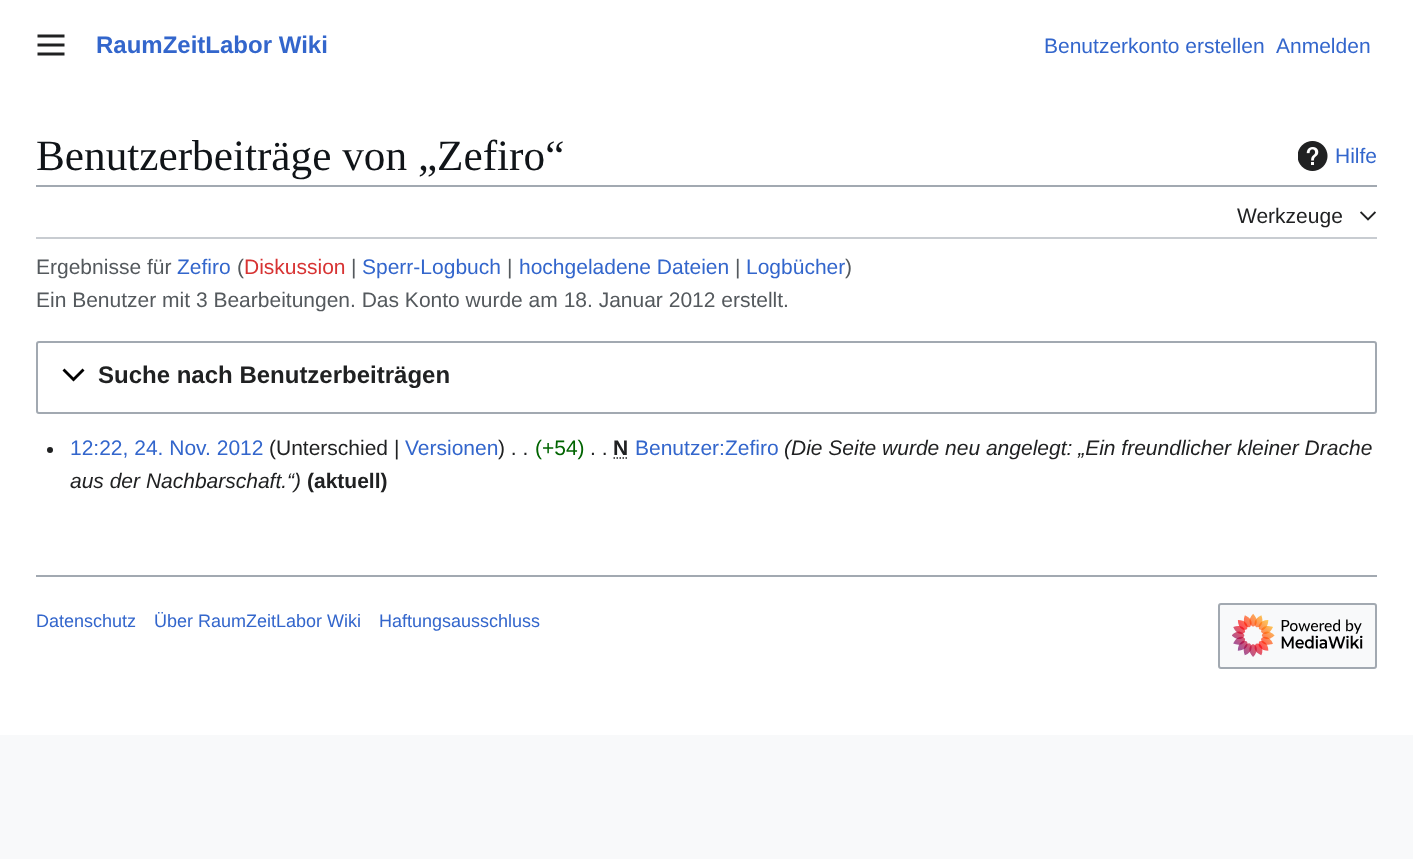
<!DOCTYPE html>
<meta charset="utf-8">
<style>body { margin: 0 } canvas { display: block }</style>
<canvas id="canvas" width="1413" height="859"></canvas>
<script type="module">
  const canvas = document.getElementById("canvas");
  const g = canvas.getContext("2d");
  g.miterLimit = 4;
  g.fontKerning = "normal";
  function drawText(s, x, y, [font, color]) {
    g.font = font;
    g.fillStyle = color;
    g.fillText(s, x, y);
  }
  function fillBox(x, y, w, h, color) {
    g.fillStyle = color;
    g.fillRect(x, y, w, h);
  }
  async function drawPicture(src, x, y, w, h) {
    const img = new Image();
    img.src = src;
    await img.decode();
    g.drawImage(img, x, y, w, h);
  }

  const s1 = ["bold 24px Liberation Sans", "#3366CC"];
  const s2 = ["21px Liberation Sans", "#3366CC"];
  const s3 = ["43.25px Liberation Serif", "#101418"];
  const s4 = ["21px Liberation Sans", "#202122"];
  const s5 = ["21px Liberation Sans", "#54595D"];
  const s6 = ["21px Liberation Sans", "#D73333"];
  const s7 = ["bold 24px Liberation Sans", "#202122"];
  const s8 = ["21px Liberation Sans", "#006400"];
  const s9 = ["bold 21px Liberation Sans", "#202122"];
  const s10 = ["italic 21px Liberation Sans", "#202122"];
  const s11 = ["18px Liberation Sans", "#3366CC"];

  fillBox(0, 0, 1413, 859, "#F8F9FA");
  fillBox(0, 0, 1413, 735, "#FFFFFF");
  await drawPicture("pic1.png", 37, 34, 28, 22);
  drawText("RaumZeitLabor Wiki", 96, 53, s1);
  drawText("Benutzerkonto erstellen", 1044, 53, s2);
  drawText("Anmelden", 1276, 53, s2);
  drawText("Benutzerbeiträge von „Zefiro“", 36, 170, s3);
  await drawPicture("pic2.png", 1298, 141, 30, 30);
  drawText("Hilfe", 1335, 163, s2);
  fillBox(36, 185, 1341, 2, "#A2A9B1");
  fillBox(36, 237, 1341, 2, "#C8CCD1");
  drawText("Werkzeuge", 1237, 223, s4);
  await drawPicture("pic3.png", 1360, 211, 16, 10);
  drawText("Ergebnisse für", 36, 274, s5);
  drawText("Zefiro", 177, 274, s2);
  drawText("(", 237, 274, s5);
  drawText("Diskussion", 244, 274, s6);
  drawText("|", 351, 274, s5);
  drawText("Sperr-Logbuch", 362, 274, s2);
  drawText("|", 507, 274, s5);
  drawText("hochgeladene Dateien", 519, 274, s2);
  drawText("|", 735, 274, s5);
  drawText("Logbücher", 746, 274, s2);
  drawText(")", 845, 274, s5);
  drawText("Ein Benutzer mit 3 Bearbeitungen. Das Konto wurde am 18. Januar 2012 erstellt.", 36, 307, s5);
  g.beginPath();
  g.roundRect(37, 342, 1339, 71, 2);
  g.strokeStyle = "#A2A9B1";
  g.lineWidth = 2;
  g.stroke();
  g.fillStyle = "#000000";
  g.beginPath();
  g.moveTo(82.5, 368.5);
  g.lineTo(73.5, 377.5);
  g.lineTo(64.5, 368.5);
  g.lineTo(62.5, 370.5);
  g.lineTo(73.5, 381.5);
  g.lineTo(84.5, 370.5);
  g.closePath();
  g.fill();
  drawText("Suche nach Benutzerbeiträgen", 98, 383, s7);
  g.beginPath();
  g.arc(50, 450, 3, 0, Math.PI * 2);
  g.fill();
  drawText("12:22, 24. Nov. 2012", 70, 455, s2);
  drawText("(Unterschied |", 269, 455, s4);
  drawText("Versionen", 405, 455, s2);
  drawText(") . .", 498, 455, s4);
  drawText("(+54)", 535, 455, s8);
  drawText("N", 613, 455, s9);
  g.beginPath();
  g.moveTo(613.5, 458);
  g.lineTo(628.5, 458);
  g.strokeStyle = "#202122";
  g.lineWidth = 1.5;
  g.setLineDash([1.5, 1.5]);
  g.stroke();
  drawText("Benutzer:Zefiro", 635, 455, s2);
  drawText("(Die Seite wurde neu angelegt: „Ein freundlicher kleiner Drache", 784, 455, s10);
  drawText(". .", 590, 455, s4);
  drawText("aus der Nachbarschaft.“)", 70, 488, s10);
  drawText("(aktuell)", 307, 488, s9);
  fillBox(36, 575, 1341, 2, "#A2A9B1");
  drawText("Datenschutz", 36, 627, s11);
  drawText("Über RaumZeitLabor Wiki", 154, 627, s11);
  drawText("Haftungsausschluss", 379, 627, s11);
  g.fillStyle = "#F8F9FA";
  g.beginPath();
  g.roundRect(1219, 604, 157, 64, 2);
  g.fill();
  g.strokeStyle = "#A2A9B1";
  g.lineWidth = 2;
  g.setLineDash([]);
  g.stroke();
  await drawPicture("pic4.png", 1232, 613, 131, 44);
</script>
